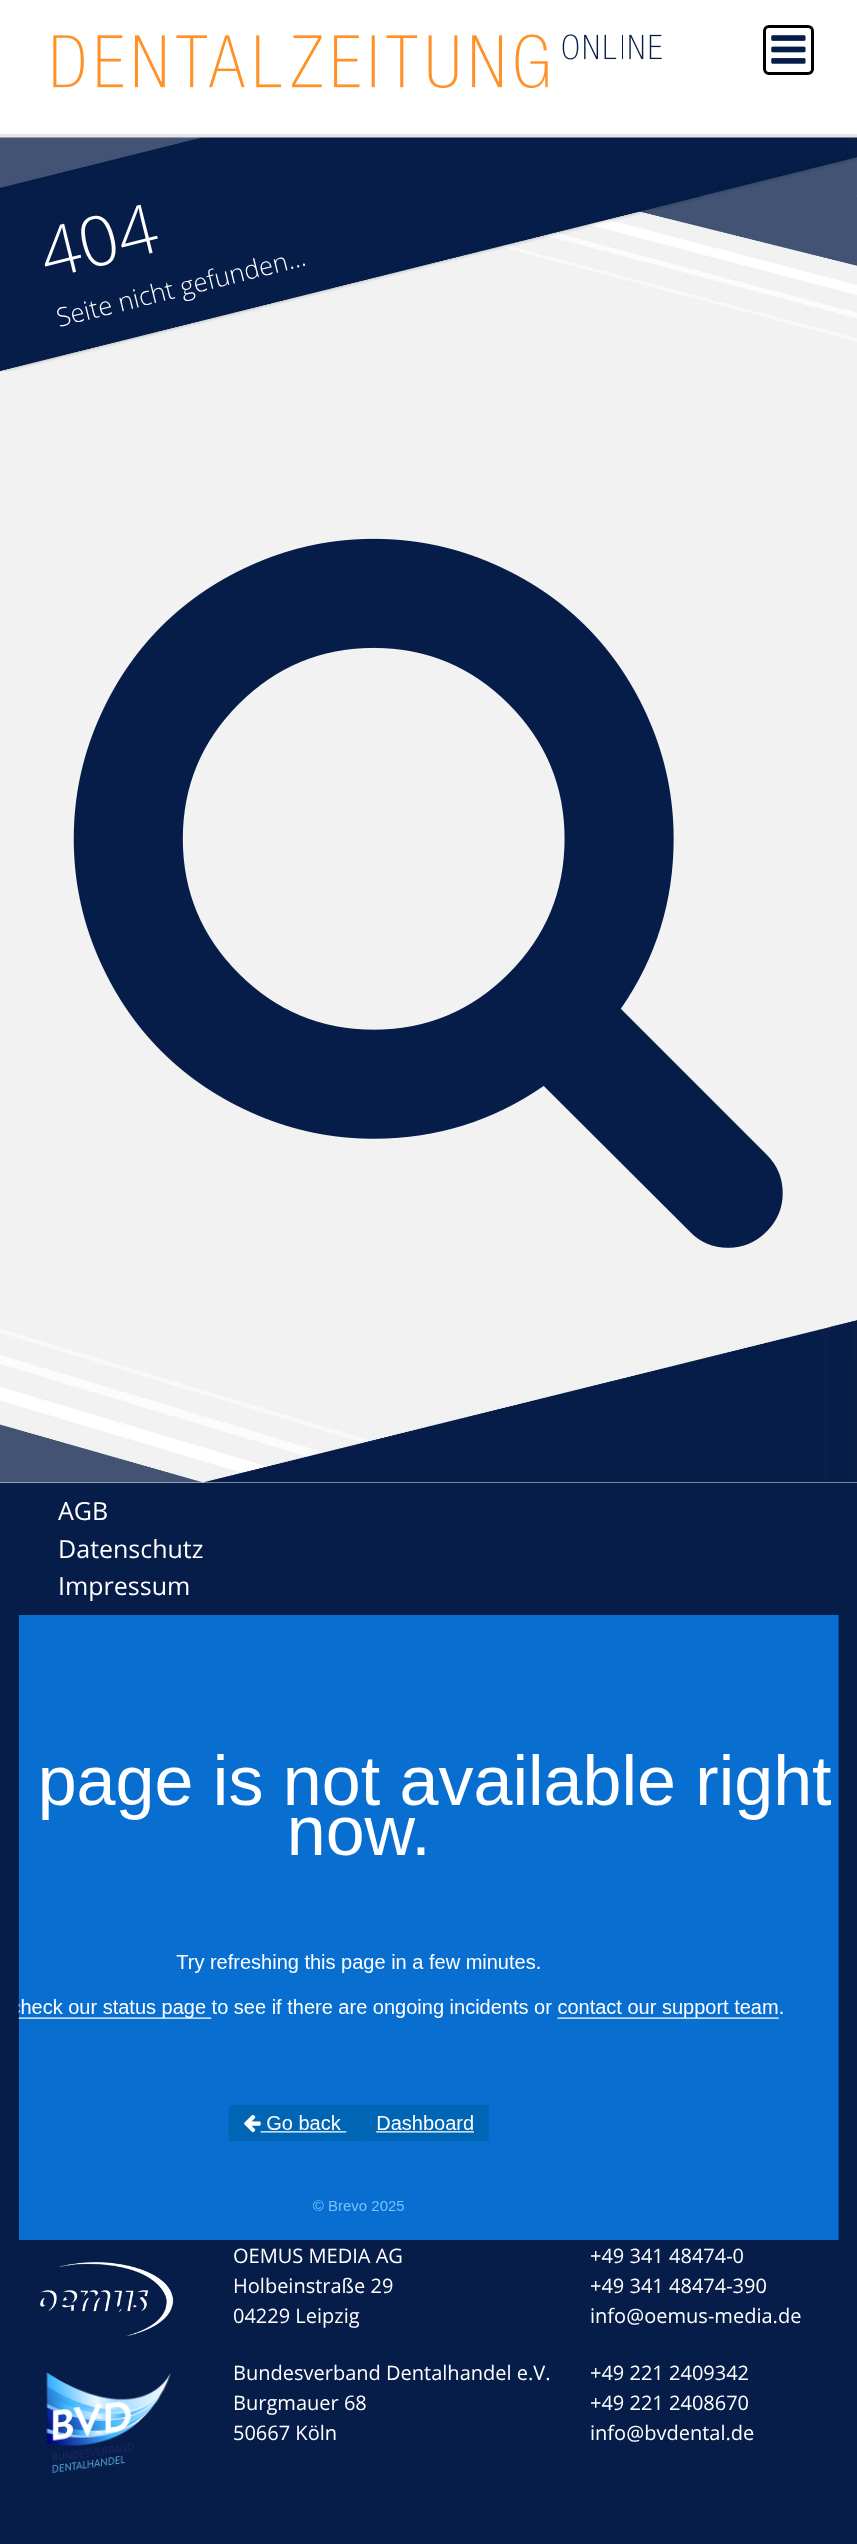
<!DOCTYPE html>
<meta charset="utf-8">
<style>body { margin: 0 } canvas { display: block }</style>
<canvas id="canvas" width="857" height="2544"></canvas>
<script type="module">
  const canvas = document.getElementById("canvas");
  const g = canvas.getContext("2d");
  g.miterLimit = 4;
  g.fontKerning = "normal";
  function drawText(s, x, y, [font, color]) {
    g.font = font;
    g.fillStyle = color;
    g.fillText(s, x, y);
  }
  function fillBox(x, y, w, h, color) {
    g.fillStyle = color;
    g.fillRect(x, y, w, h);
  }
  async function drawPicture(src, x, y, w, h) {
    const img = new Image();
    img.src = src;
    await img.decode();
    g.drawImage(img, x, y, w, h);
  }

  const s1 = ["25px Open Sans", "#FFFFFF"];
  const s2 = ["20px Open Sans", "#FFFFFF"];

  fillBox(0, 0, 857, 2544, "#FFFFFF");
  fillBox(0, 134, 857, 4, "#E6E6E6");
  await drawPicture("pic1.png", 53, 34, 609, 55);
  g.beginPath();
  g.roundRect(764.5, 26.5, 48, 47, 4.5);
  g.strokeStyle = "#000000";
  g.lineWidth = 3;
  g.stroke();
  await drawPicture("pic2.png", 771, 35, 35, 29);
  fillBox(0, 371, 857, 1112, "#F2F2F2");
  await drawPicture("pic3.png", 0, 137, 857, 1346);
  g.font = "300 69px Open Sans";
  g.fillStyle = "#FFFFFF";
  g.save();
  g.translate(47, 279);
  g.rotate(-14 * Math.PI / 180);
  g.fillText("404", 0, 0);
  g.restore();
  g.font = "300 25.75px Open Sans";
  g.save();
  g.translate(59, 327);
  g.rotate(-14 * Math.PI / 180);
  g.fillText("Seite nicht gefunden...", 0, 0);
  g.restore();
  await drawPicture("pic4.png", 73, 538, 710, 710);
  fillBox(0, 1483, 857, 1061, "#061D49");
  drawText("AGB", 58, 1520, s1);
  drawText("Datenschutz", 58, 1558, s1);
  drawText("Impressum", 58, 1595, s1);
  await drawPicture("pic5.png", 18, 1615, 821, 625);
  await drawPicture("pic6.png", 40, 2262, 134, 74);
  drawText("OEMUS MEDIA AG", 233, 2263, s2);
  drawText("Holbeinstraße 29", 233, 2293, s2);
  drawText("04229 Leipzig", 233, 2323, s2);
  drawText("+49 341 48474-0", 590, 2263, s2);
  drawText("+49 341 48474-390", 590, 2293, s2);
  drawText("info@oemus-media.de", 590, 2323, s2);
  await drawPicture("pic7.png", 46, 2372, 125, 102);
  drawText("Bundesverband Dentalhandel e.V.", 233, 2380, s2);
  drawText("Burgmauer 68", 233, 2410, s2);
  drawText("50667 Köln", 233, 2440, s2);
  drawText("+49 221 2409342", 590, 2380, s2);
  drawText("+49 221 2408670", 590, 2410, s2);
  drawText("info@bvdental.de", 590, 2440, s2);
</script>
